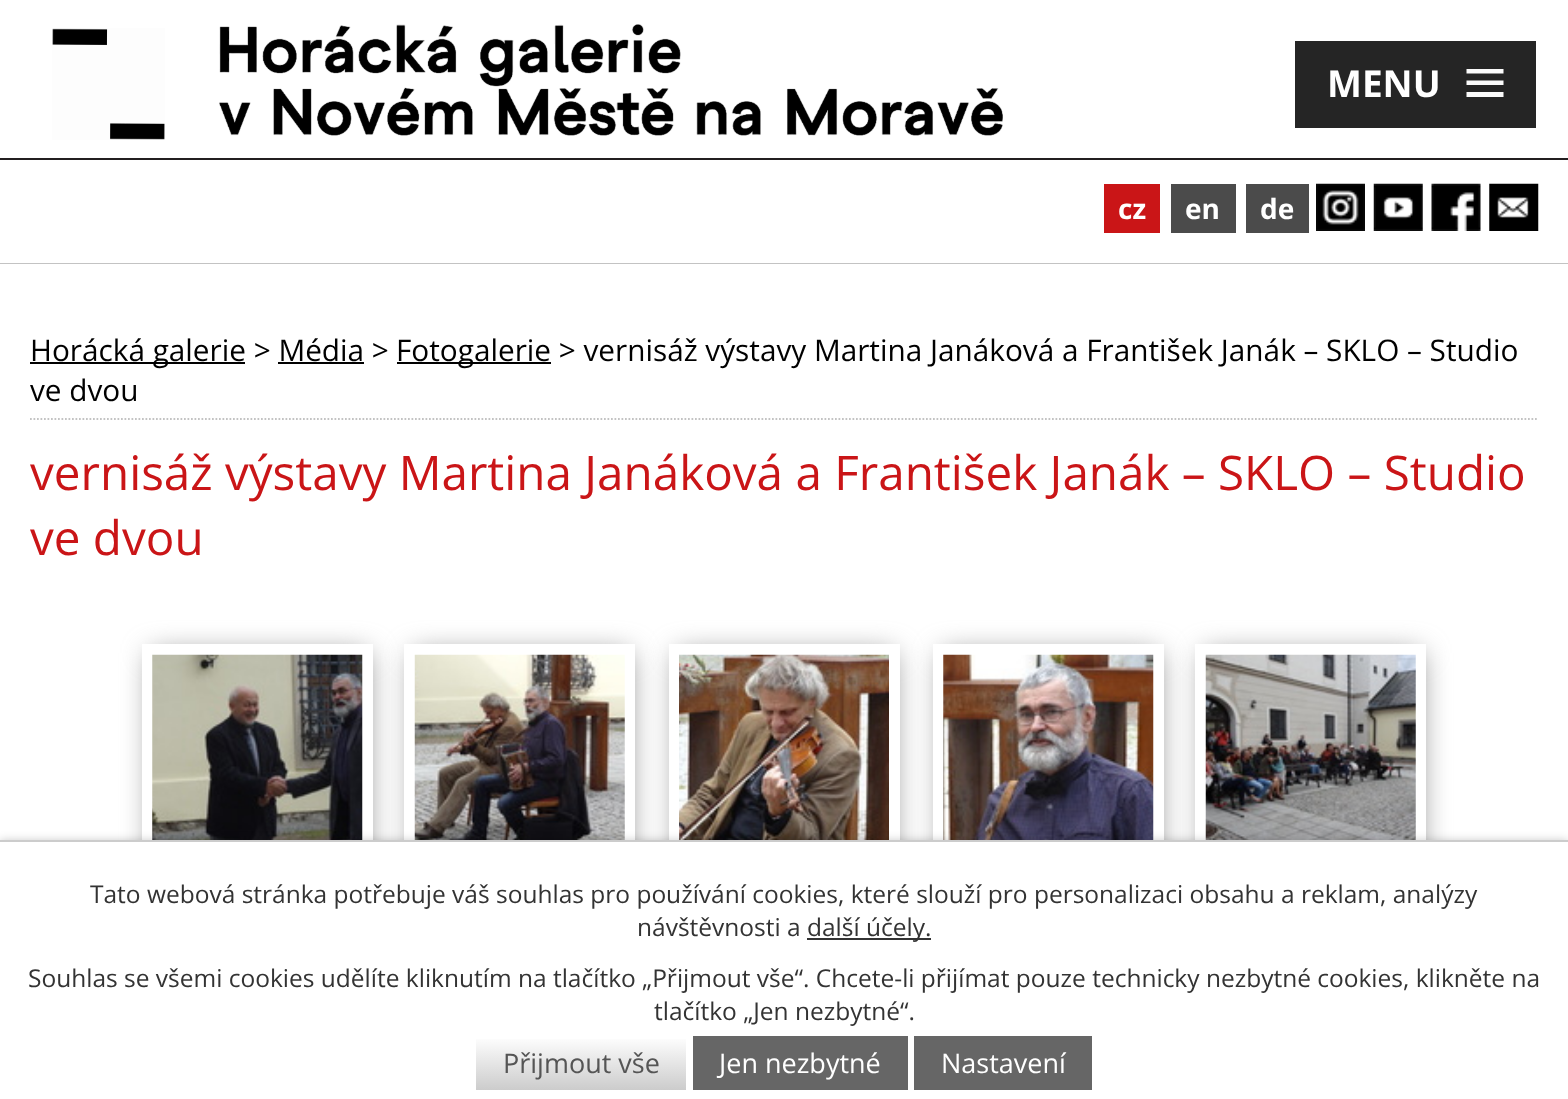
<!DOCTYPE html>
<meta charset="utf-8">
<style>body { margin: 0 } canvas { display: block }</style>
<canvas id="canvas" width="1568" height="1099"></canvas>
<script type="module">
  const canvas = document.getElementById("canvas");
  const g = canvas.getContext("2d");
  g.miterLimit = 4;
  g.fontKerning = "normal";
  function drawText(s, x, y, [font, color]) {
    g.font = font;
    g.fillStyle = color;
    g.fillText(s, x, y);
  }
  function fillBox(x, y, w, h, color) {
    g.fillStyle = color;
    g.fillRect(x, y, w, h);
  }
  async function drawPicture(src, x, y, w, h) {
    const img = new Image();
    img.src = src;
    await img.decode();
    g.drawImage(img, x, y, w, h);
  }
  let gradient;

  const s1 = ["bold 37px Open Sans", "#FFFFFF"];
  const s2 = ["bold 28px Open Sans", "#FFFFFF"];
  const s3 = ["29.75px Open Sans", "#000000"];
  const s4 = ["47.6px Open Sans", "#CA1517"];
  const s5 = ["24.5px Open Sans", "#333333"];
  const s6 = ["27px Open Sans", "#555555"];
  const s7 = ["27px Open Sans", "#FFFFFF"];

  fillBox(0, 0, 1568, 1099, "#FFFFFF");
  fillBox(1295, 41, 241, 87, "#252525");
  drawText("MENU", 1327, 97, s1);
  g.fillStyle = "#FBFBFB";
  g.beginPath();
  g.moveTo(1466.5, 97);
  g.lineTo(1466.5, 92);
  g.lineTo(1503.5, 92);
  g.lineTo(1503.5, 97);
  g.closePath();
  g.moveTo(1466.5, 69);
  g.lineTo(1503.5, 69);
  g.lineTo(1503.5, 73.5);
  g.lineTo(1466.5, 73.5);
  g.closePath();
  g.moveTo(1466.5, 85);
  g.lineTo(1466.5, 80.5);
  g.lineTo(1503.5, 80.5);
  g.lineTo(1503.5, 85);
  g.closePath();
  g.fill();
  fillBox(0, 263, 1568, 1, "#C3C3C3");
  fillBox(0, 158, 1568, 2, "#231F20");
  await drawPicture("pic1.png", 52, 28, 113, 112);
  await drawPicture("pic2.png", 219, 24, 784, 112);
  fillBox(1104, 184, 56, 49, "#CA1517");
  drawText("cz", 1118, 219, s2);
  fillBox(1171, 184, 65, 49, "#4B4B4B");
  drawText("en", 1185, 219, s2);
  fillBox(1246, 184, 63, 49, "#4B4B4B");
  drawText("de", 1260, 219, s2);
  await drawPicture("pic3.png", 1316, 183, 49, 48);
  await drawPicture("pic4.png", 1373, 183, 50, 48);
  await drawPicture("pic5.png", 1431, 183, 50, 48);
  await drawPicture("pic6.png", 1489, 183, 50, 48);
  g.beginPath();
  g.moveTo(30, 419);
  g.lineTo(1538, 419);
  g.strokeStyle = "#C3C3C3";
  g.lineWidth = 1.8;
  g.setLineDash([1.75, 1.75]);
  g.stroke();
  fillBox(30, 362, 215, 2, "#000000");
  drawText("Horácká galerie > Média >", 30, 361, s3);
  fillBox(397, 362, 154, 2, "#000000");
  drawText("Fotogalerie > vernisáž výstavy Martina Janáková a František Janák – SKLO – Studio", 396, 361, s3);
  fillBox(278, 362, 86, 2, "#000000");
  drawText("ve dvou", 30, 401, s3);
  drawText("vernisáž výstavy Martina Janáková a František Janák – SKLO – Studio", 30, 490, s4);
  drawText("ve dvou", 30, 555, s4);
  g.save();
  g.beginPath();
  g.moveTo(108, 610);
  g.lineTo(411, 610);
  g.lineTo(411, 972);
  g.lineTo(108, 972);
  g.closePath();
  g.moveTo(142, 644);
  g.lineTo(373, 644);
  g.lineTo(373, 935);
  g.lineTo(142, 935);
  g.closePath();
  g.clip("evenodd");
  g.fillStyle = "#888888";
  g.filter = "blur(14px)";
  g.beginPath();
  g.rect(151, 653, 217, 276);
  g.fill();
  g.filter = "none";
  g.restore();
  await drawPicture("pic7.png", 152, 654, 211, 186);
  g.save();
  g.beginPath();
  g.moveTo(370, 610);
  g.lineTo(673, 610);
  g.lineTo(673, 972);
  g.lineTo(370, 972);
  g.closePath();
  g.moveTo(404, 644);
  g.lineTo(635, 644);
  g.lineTo(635, 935);
  g.lineTo(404, 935);
  g.closePath();
  g.clip("evenodd");
  g.fillStyle = "#888888";
  g.filter = "blur(14px)";
  g.beginPath();
  g.rect(413, 653, 217, 276);
  g.fill();
  g.filter = "none";
  g.restore();
  await drawPicture("pic8.png", 414, 654, 211, 186);
  g.save();
  g.beginPath();
  g.moveTo(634, 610);
  g.lineTo(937, 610);
  g.lineTo(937, 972);
  g.lineTo(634, 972);
  g.closePath();
  g.moveTo(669, 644);
  g.lineTo(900, 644);
  g.lineTo(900, 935);
  g.lineTo(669, 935);
  g.closePath();
  g.clip("evenodd");
  g.fillStyle = "#888888";
  g.filter = "blur(14px)";
  g.beginPath();
  g.rect(677, 653, 217, 276);
  g.fill();
  g.filter = "none";
  g.restore();
  await drawPicture("pic9.png", 679, 654, 210, 186);
  g.save();
  g.beginPath();
  g.moveTo(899, 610);
  g.lineTo(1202, 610);
  g.lineTo(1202, 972);
  g.lineTo(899, 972);
  g.closePath();
  g.moveTo(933, 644);
  g.lineTo(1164, 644);
  g.lineTo(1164, 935);
  g.lineTo(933, 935);
  g.closePath();
  g.clip("evenodd");
  g.fillStyle = "#888888";
  g.filter = "blur(14px)";
  g.beginPath();
  g.rect(942, 653, 217, 276);
  g.fill();
  g.filter = "none";
  g.restore();
  await drawPicture("pic10.png", 943, 654, 211, 186);
  g.save();
  g.beginPath();
  g.moveTo(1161, 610);
  g.lineTo(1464, 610);
  g.lineTo(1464, 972);
  g.lineTo(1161, 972);
  g.closePath();
  g.moveTo(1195, 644);
  g.lineTo(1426, 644);
  g.lineTo(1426, 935);
  g.lineTo(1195, 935);
  g.closePath();
  g.clip("evenodd");
  g.fillStyle = "#888888";
  g.filter = "blur(14px)";
  g.beginPath();
  g.rect(1204, 653, 217, 276);
  g.fill();
  g.filter = "none";
  g.restore();
  await drawPicture("pic11.png", 1205, 654, 211, 186);
  g.fillStyle = "rgba(0, 0, 0, 0.2)";
  g.filter = "blur(4.5px)";
  g.beginPath();
  g.rect(0, 840, 1568, 259);
  g.fill();
  g.filter = "none";
  fillBox(0, 842, 1568, 257, "#FFFFFF");
  fillBox(0, 840, 1568, 2, "#CCCCCC");
  drawText("Tato webová stránka potřebuje váš souhlas pro používání cookies, které slouží pro personalizaci obsahu a reklam, analýzy", 90, 903, s5);
  drawText("návštěvnosti a", 637, 936, s5);
  fillBox(807, 938, 124, 2, "#333333");
  drawText("další účely.", 807, 936, s5);
  drawText("Souhlas se všemi cookies udělíte kliknutím na tlačítko „Přijmout vše“. Chcete-li přijímat pouze technicky nezbytné cookies, klikněte na", 28, 987, s5);
  drawText("tlačítko „Jen nezbytné“.", 654, 1020, s5);
  gradient = g.createLinearGradient(476, 1036, 476, 1090);
  gradient.addColorStop(0, "#FFFFFF");
  gradient.addColorStop(1, "#CCCCCC");
  g.fillStyle = gradient;
  g.fillRect(476, 1039, 210, 51);
  drawText("Přijmout vše", 503, 1073, s6);
  fillBox(693, 1036, 215, 54, "#666666");
  drawText("Jen nezbytné", 719, 1073, s7);
  fillBox(914, 1036, 178, 54, "#666666");
  drawText("Nastavení", 941, 1073, s7);
</script>
